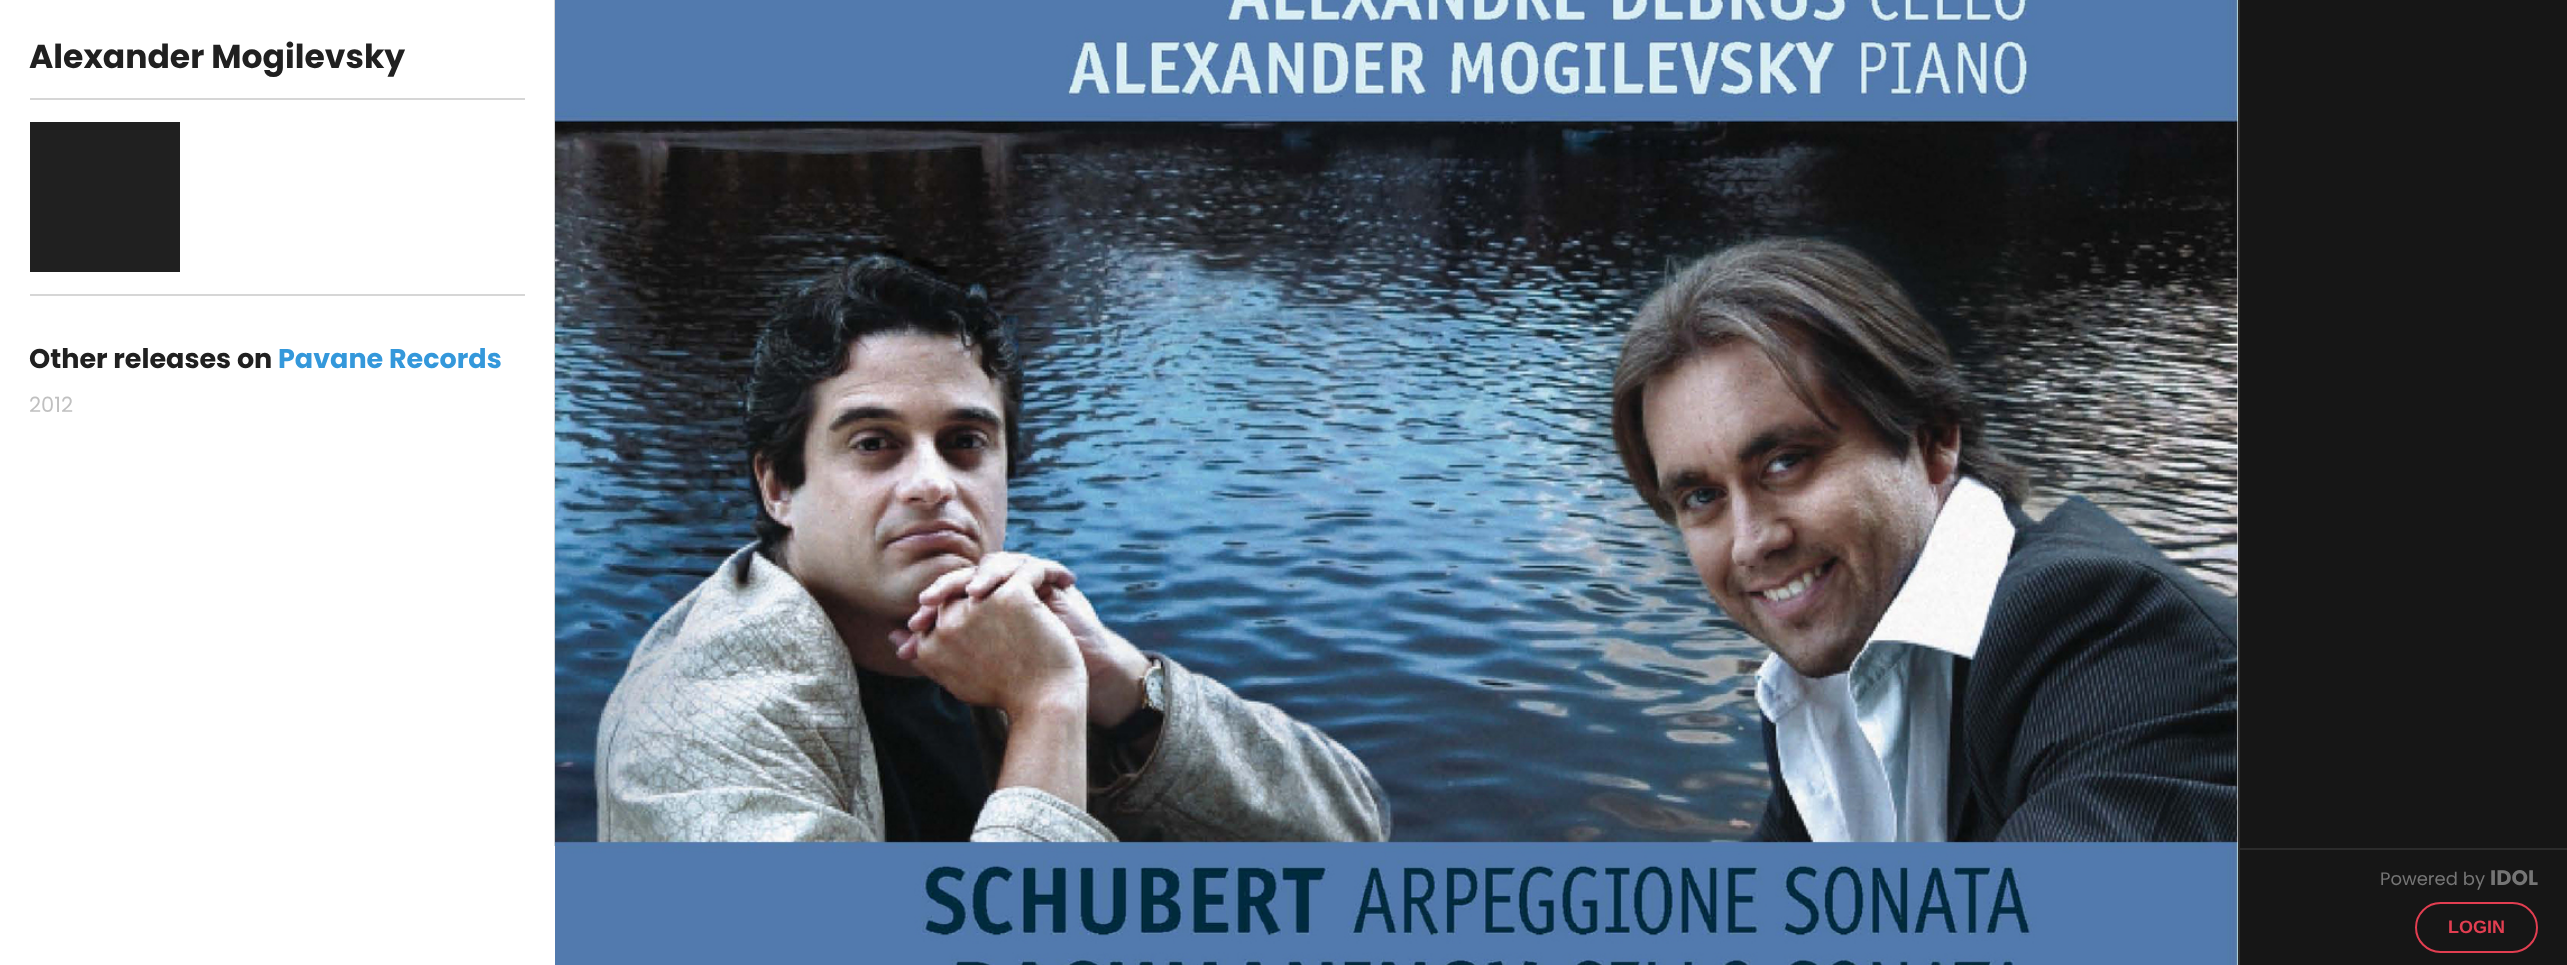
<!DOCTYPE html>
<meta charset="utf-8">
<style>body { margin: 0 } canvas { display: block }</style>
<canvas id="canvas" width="2567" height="965"></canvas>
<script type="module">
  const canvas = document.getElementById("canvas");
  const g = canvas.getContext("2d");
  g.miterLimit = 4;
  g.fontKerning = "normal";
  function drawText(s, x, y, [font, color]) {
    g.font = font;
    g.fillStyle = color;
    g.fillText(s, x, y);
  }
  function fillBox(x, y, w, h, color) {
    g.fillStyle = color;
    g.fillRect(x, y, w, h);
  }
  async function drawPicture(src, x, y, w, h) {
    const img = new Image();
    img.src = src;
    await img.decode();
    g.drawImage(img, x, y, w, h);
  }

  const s1 = ["bold 33px Poppins", "#202020"];
  const s2 = ["bold 27px Poppins", "#202020"];
  const s3 = ["bold 27px Poppins", "#3498DB"];
  const s4 = ["21px Poppins", "#C0C0C0"];
  const s5 = ["18px Poppins", "#757575"];
  const s6 = ["bold 21px Poppins", "#757575"];
  const s7 = ["bold 18px Liberation Sans", "#E23E51"];

  fillBox(0, 0, 2567, 965, "#FFFFFF");
  fillBox(554, 0, 1, 846, "#D6D6D6");
  drawText("Alexander Mogilevsky", 29, 68, s1);
  fillBox(30, 98, 495, 2, "#D6D6D6");
  fillBox(30, 294, 495, 2, "#D6D6D6");
  fillBox(30, 122, 150, 150, "#202020");
  drawText("Other releases on", 29, 368, s2);
  drawText("Pavane Records", 278, 368, s3);
  drawText("2012", 29, 412, s4);
  await drawPicture("pic1.png", 555, 0, 1683, 965);
  fillBox(2240, 0, 327, 848, "#161616");
  fillBox(2238, 0, 2, 848, "#2B2B2B");
  fillBox(2240, 850, 327, 115, "#161616");
  fillBox(2238, 848, 329, 2, "#2B2B2B");
  fillBox(2238, 848, 2, 117, "#2B2B2B");
  drawText("Powered by", 2380, 885, s5);
  drawText("IDOL", 2490, 885, s6);
  g.beginPath();
  g.roundRect(2416, 903, 121, 49, 24.5);
  g.strokeStyle = "#E23E51";
  g.lineWidth = 2;
  g.stroke();
  drawText("LOGIN", 2448, 933, s7);
</script>
